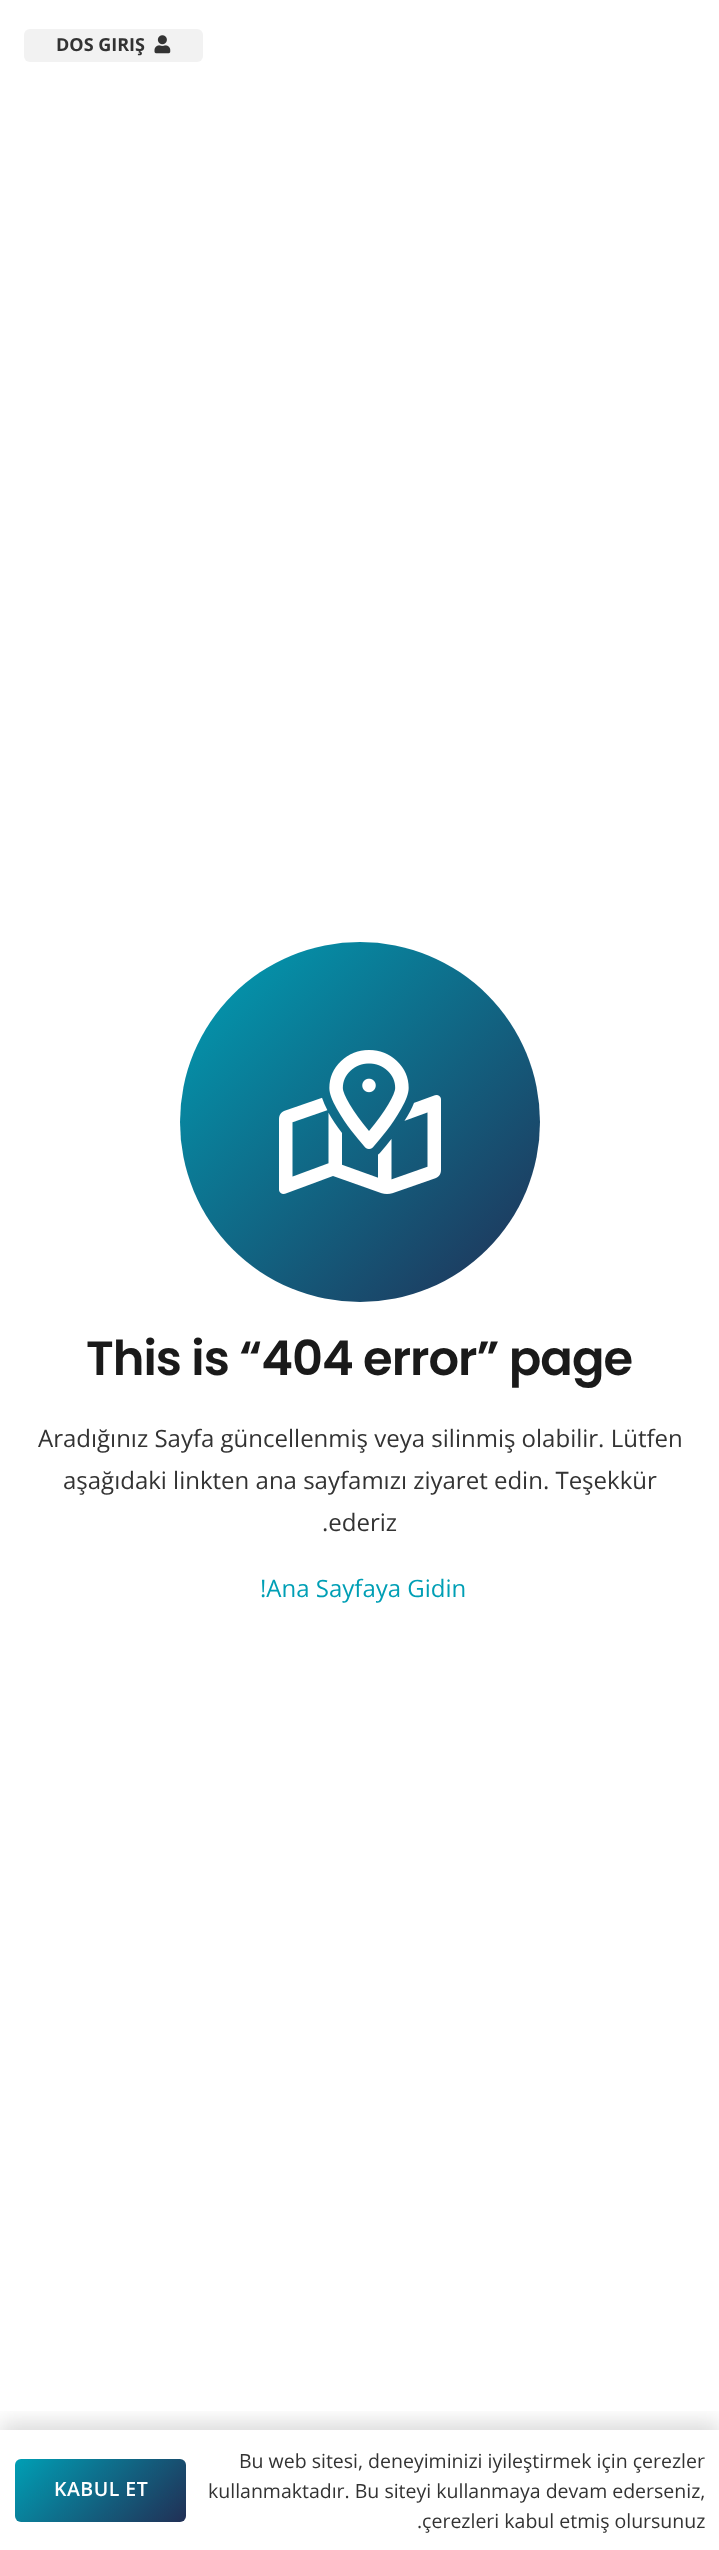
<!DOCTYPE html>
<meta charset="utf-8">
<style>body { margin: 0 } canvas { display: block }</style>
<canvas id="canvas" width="719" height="2550"></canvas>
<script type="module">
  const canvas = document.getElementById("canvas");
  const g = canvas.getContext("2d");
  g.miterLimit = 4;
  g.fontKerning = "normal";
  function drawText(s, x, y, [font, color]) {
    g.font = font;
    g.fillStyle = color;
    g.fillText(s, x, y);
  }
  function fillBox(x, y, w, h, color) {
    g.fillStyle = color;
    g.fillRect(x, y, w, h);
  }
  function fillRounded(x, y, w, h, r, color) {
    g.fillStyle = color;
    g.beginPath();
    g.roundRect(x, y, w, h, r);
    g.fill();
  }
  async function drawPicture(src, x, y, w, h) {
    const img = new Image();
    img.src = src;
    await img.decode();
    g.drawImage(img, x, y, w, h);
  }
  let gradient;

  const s1 = ["bold 18px Open Sans", "#333333"];
  const s2 = ["600 48px Poppins", "#1A1A1A"];
  const s3 = ["24px Open Sans", "#333333"];
  const s4 = ["24px Open Sans", "#009FB5"];
  const s5 = ["600 19.5px Open Sans", "#FFFFFF"];
  const s6 = ["19.5px Open Sans", "#333333"];

  fillBox(0, 0, 719, 2550, "#FFFFFF");
  fillRounded(24, 29, 179, 33, 6, "#F2F2F2");
  drawText("DOS GIRIŞ", 56, 51, s1);
  await drawPicture("pic1.png", 154, 35, 17, 19);
  gradient = g.createLinearGradient(180, 942, 540, 1302);
  gradient.addColorStop(0, "#009FB5");
  gradient.addColorStop(1, "#212F55");
  g.fillStyle = gradient;
  g.beginPath();
  g.arc(360, 1122, 180, 0, Math.PI * 2);
  g.fill();
  await drawPicture("pic2.png", 279, 1050, 162, 144);
  g.letterSpacing = "-1px";
  drawText("This is “404 error” page", 86, 1375, s2);
  g.letterSpacing = "0px";
  drawText("Aradığınız Sayfa güncellenmiş veya silinmiş olabilir. Lütfen", 38, 1447, s3);
  drawText("aşağıdaki linkten ana sayfamızı ziyaret edin. Teşekkür", 63, 1489, s3);
  drawText(".ederiz", 322, 1531, s3);
  drawText("!Ana Sayfaya Gidin", 260, 1597, s4);
  g.save();
  g.beginPath();
  g.rect(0, 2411, 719, 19);
  g.clip();
  g.fillStyle = "rgba(0, 0, 0, 0.15)";
  g.filter = "blur(11px)";
  g.beginPath();
  g.rect(0, 2423, 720, 120);
  g.fill();
  g.filter = "none";
  g.restore();
  gradient = g.createLinearGradient(42, 2432, 159, 2549);
  gradient.addColorStop(0, "#009FB5");
  gradient.addColorStop(1, "#212F55");
  g.fillStyle = gradient;
  g.beginPath();
  g.roundRect(15, 2459, 171, 63, 6);
  g.fill();
  g.letterSpacing = "0.5px";
  drawText("KABUL ET", 54, 2496, s5);
  g.letterSpacing = "0px";
  drawText("Bu web sitesi, deneyiminizi iyileştirmek için çerezler", 239, 2468, s6);
  drawText("kullanmaktadır. Bu siteyi kullanmaya devam ederseniz,", 208, 2498, s6);
  drawText(".çerezleri kabul etmiş olursunuz", 417, 2528, s6);
</script>
